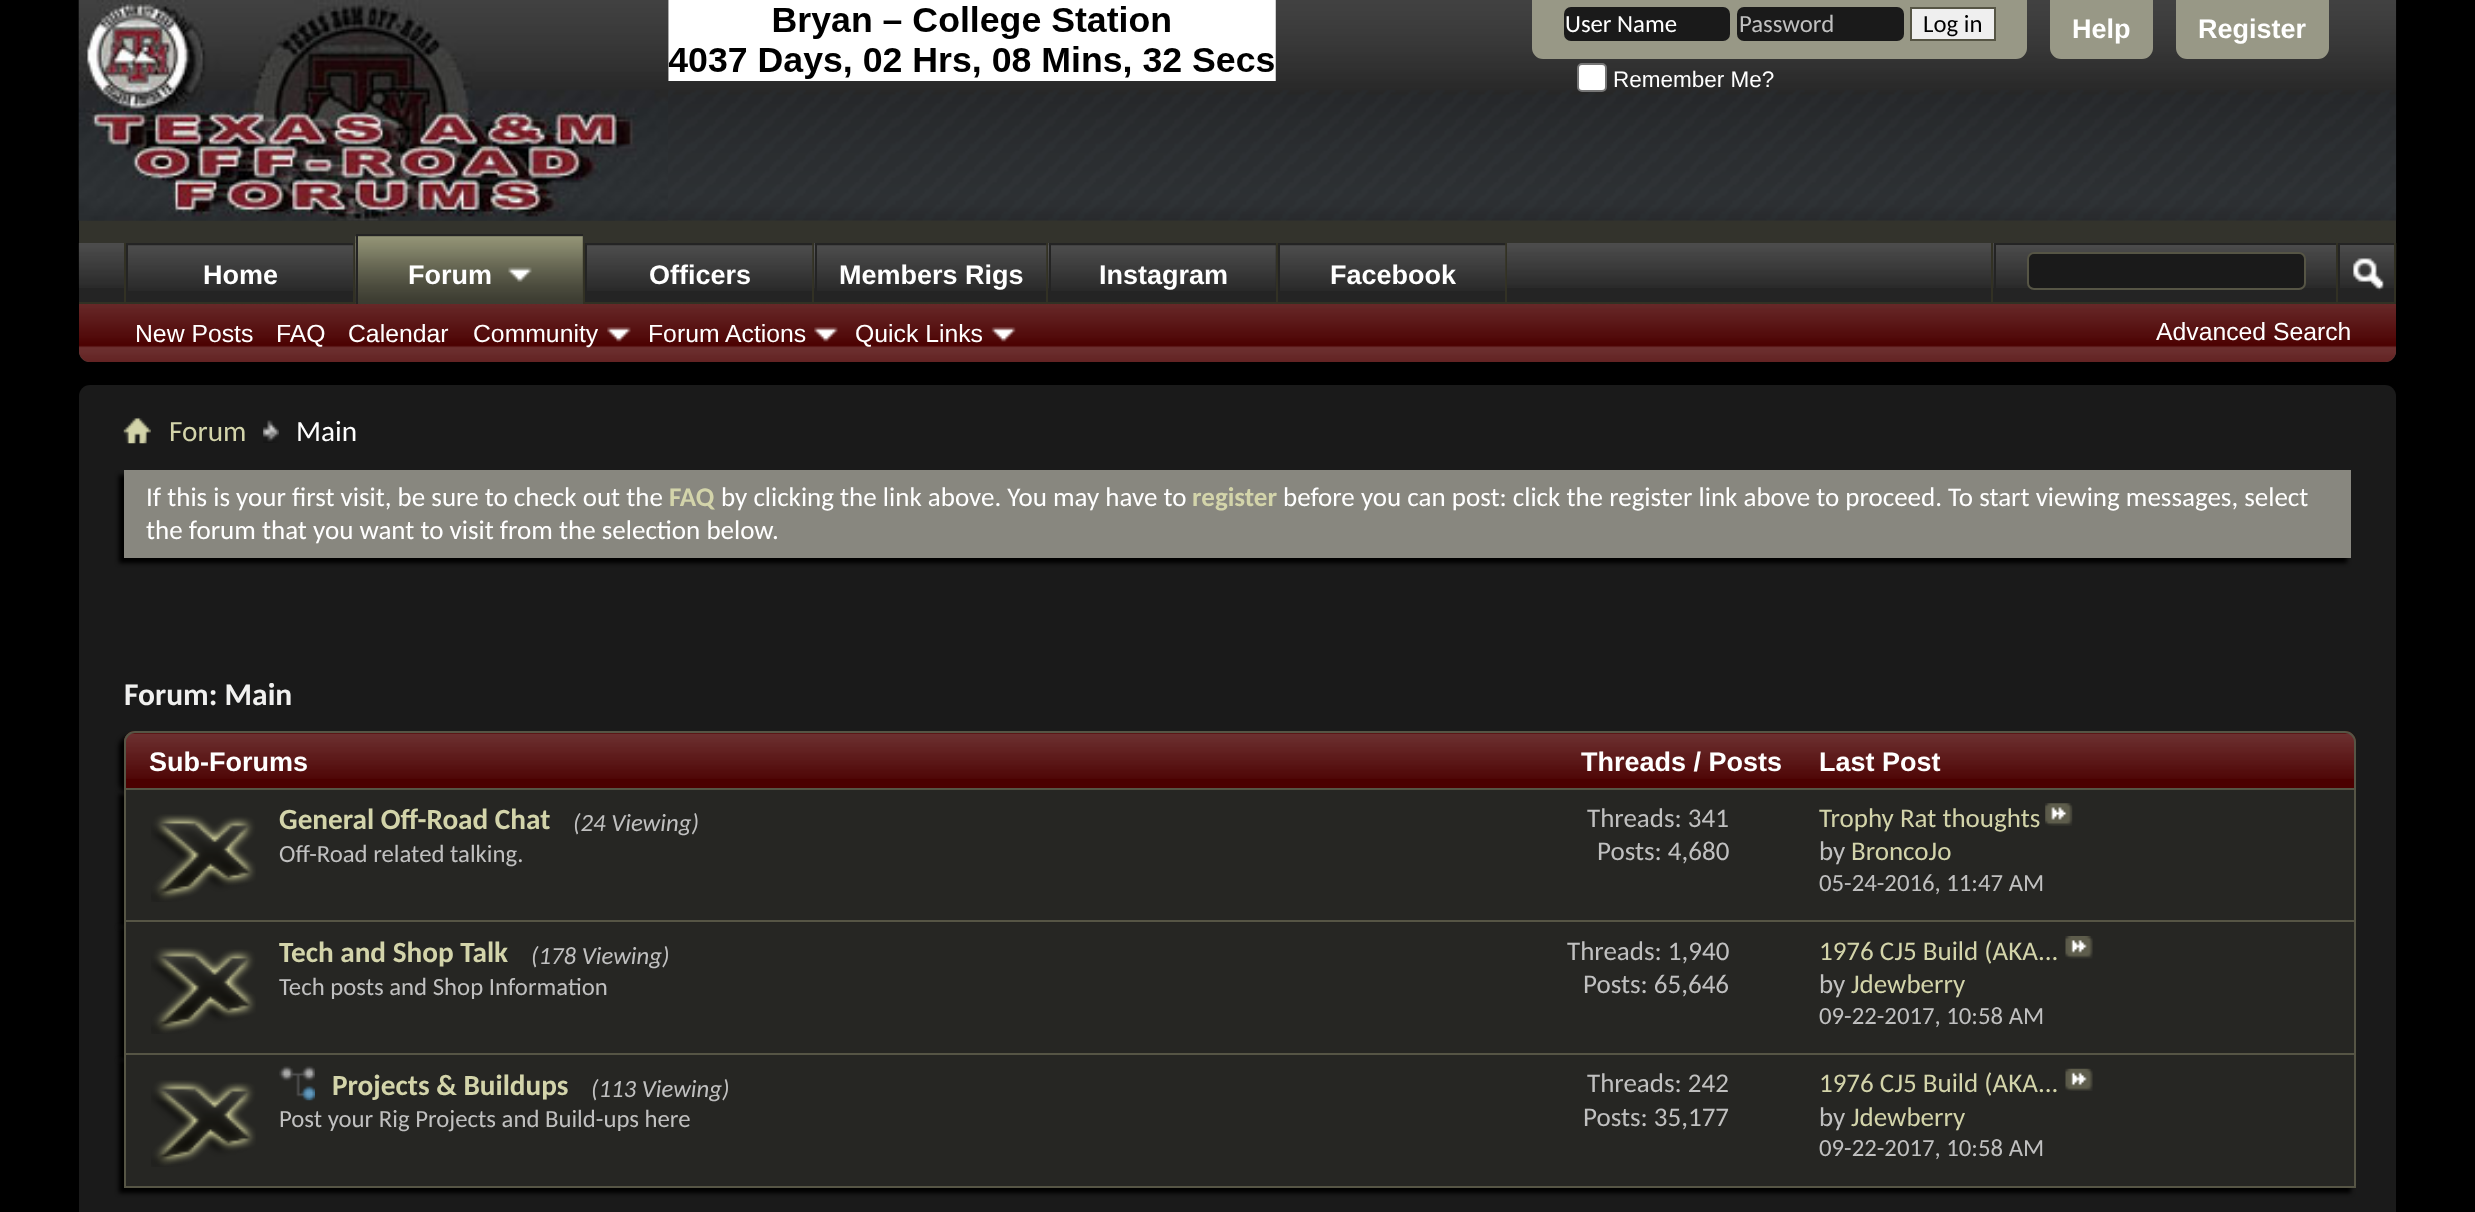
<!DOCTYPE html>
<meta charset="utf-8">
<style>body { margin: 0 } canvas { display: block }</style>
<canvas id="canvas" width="2475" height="1212"></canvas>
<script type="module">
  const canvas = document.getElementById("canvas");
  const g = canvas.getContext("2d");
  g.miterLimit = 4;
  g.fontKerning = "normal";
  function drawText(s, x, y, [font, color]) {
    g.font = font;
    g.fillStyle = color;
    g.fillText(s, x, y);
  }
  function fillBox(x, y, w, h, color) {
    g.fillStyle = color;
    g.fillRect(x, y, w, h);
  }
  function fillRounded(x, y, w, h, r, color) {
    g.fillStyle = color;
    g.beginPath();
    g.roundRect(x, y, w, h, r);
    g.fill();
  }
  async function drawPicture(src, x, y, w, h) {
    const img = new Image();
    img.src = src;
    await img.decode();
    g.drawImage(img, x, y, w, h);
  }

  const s1 = ["24.75px Carlito", "#FFFFFF"];
  const s2 = ["24.75px Carlito", "#C0C0C0"];
  const s3 = ["24.75px Carlito", "#000000"];
  const s4 = ["22.5px Liberation Sans", "#FFFFFF"];
  const s5 = ["bold 27px Liberation Sans", "#FFFFFF"];
  const s6 = ["24.75px Liberation Sans", "#FFFFFF"];
  const s7 = ["29.25px Carlito", "#D3D4AA"];
  const s8 = ["29.25px Carlito", "#FFFFFF"];
  const s9 = ["27px Carlito", "#FFFFFF"];
  const s10 = ["bold 27px Carlito", "#D3D4AA"];
  const s11 = ["bold 31.5px Carlito", "#F0F0EF"];
  const s12 = ["bold 29.25px Carlito", "#D3D4AA"];
  const s13 = ["italic 24.75px Carlito", "#C0C0C0"];
  const s14 = ["27px Carlito", "#C0C0C0"];
  const s15 = ["27px Carlito", "#D3D4AA"];

  fillBox(0, 0, 2475, 1212, "#000000");
  g.fillStyle = "#33332C";
  g.beginPath();
  g.roundRect(79, 0, 2317, 362, [0, 0, 11, 11]);
  g.fill();
  await drawPicture("pic1.png", 78, 0, 2319, 221);
  await drawPicture("pic2.png", 78, 0, 590, 221);
  await drawPicture("pic3.png", 668, 0, 608, 81);
  g.fillStyle = "#989886";
  g.beginPath();
  g.roundRect(1532, 0, 495, 59, [0, 0, 11, 11]);
  g.fill();
  fillRounded(1564, 7, 166, 34, 7, "#1A1A1A");
  drawText("User Name", 1565, 32, s1);
  fillRounded(1737, 7, 167, 34, 7, "#1A1A1A");
  drawText("Password", 1739, 32, s2);
  g.fillStyle = "#EFEFEF";
  g.beginPath();
  g.rect(1911, 8, 84, 32);
  g.fill();
  g.strokeStyle = "#565545";
  g.lineWidth = 2;
  g.stroke();
  drawText("Log in", 1923, 32, s3);
  g.fillStyle = "#FFFFFF";
  g.beginPath();
  g.roundRect(1578, 64, 28, 27, 4);
  g.fill();
  g.strokeStyle = "#767676";
  g.stroke();
  drawText("Remember Me?", 1613, 87, s4);
  g.fillStyle = "#989886";
  g.beginPath();
  g.roundRect(2050, 0, 103, 59, [0, 0, 11, 11]);
  g.fill();
  drawText("Help", 2072, 38, s5);
  g.fillStyle = "#989886";
  g.beginPath();
  g.roundRect(2176, 0, 153, 59, [0, 0, 11, 11]);
  g.fill();
  drawText("Register", 2198, 38, s5);
  g.fillStyle = "#4B0000";
  g.beginPath();
  g.roundRect(79, 243, 2317, 119, [0, 0, 11, 11]);
  g.fill();
  await drawPicture("pic4.png", 79, 304, 2317, 58);
  fillBox(79, 243, 2315, 59, "#242424");
  await drawPicture("pic5.png", 78, 243, 2319, 45);
  fillBox(353, 243, 2, 61, "#323124");
  fillBox(124, 243, 2, 61, "#323124");
  fillBox(128, 243, 225, 45, "#242424");
  await drawPicture("pic6.png", 128, 245, 226, 46);
  fillBox(126, 243, 2, 61, "#242424");
  drawText("Home", 203, 284, s5);
  fillBox(583, 243, 2, 59, "#323124");
  fillBox(812, 243, 2, 61, "#323124");
  fillBox(585, 243, 2, 61, "#242424");
  fillBox(1046, 243, 2, 61, "#323124");
  fillBox(817, 243, 229, 45, "#242424");
  await drawPicture("pic9.png", 814, 245, 233, 46);
  fillBox(815, 243, 2, 61, "#242424");
  fillBox(1276, 243, 2, 61, "#323124");
  fillBox(1051, 243, 225, 45, "#242424");
  await drawPicture("pic10.png", 1048, 245, 228, 46);
  fillBox(1049, 243, 2, 61, "#242424");
  fillBox(1505, 243, 2, 61, "#323124");
  fillBox(1278, 243, 2, 61, "#242424");
  fillBox(79, 302, 2317, 2, "#323124");
  fillBox(358, 236, 225, 68, "#3E3E33");
  await drawPicture("pic7.png", 355, 236, 228, 68);
  fillBox(356, 234, 227, 2, "#242424");
  fillBox(356, 234, 2, 70, "#242424");
  drawText("Forum", 408, 284, s5);
  await drawPicture("pic8.png", 508, 267, 24, 15);
  fillBox(587, 243, 225, 45, "#242424");
  await drawPicture("pic6.png", 587, 245, 226, 46);
  drawText("Officers", 649, 284, s5);
  drawText("Members Rigs", 839, 284, s5);
  drawText("Instagram", 1099, 284, s5);
  fillBox(1280, 243, 225, 45, "#242424");
  await drawPicture("pic6.png", 1280, 245, 226, 46);
  drawText("Facebook", 1330, 284, s5);
  drawText("New Posts", 135, 342, s6);
  drawText("FAQ", 276, 342, s6);
  drawText("Calendar", 348, 342, s6);
  drawText("Community", 473, 342, s6);
  await drawPicture("pic11.png", 607, 327, 24, 15);
  drawText("Forum Actions", 648, 342, s6);
  await drawPicture("pic11.png", 814, 327, 24, 15);
  drawText("Quick Links", 855, 342, s6);
  await drawPicture("pic12.png", 991, 327, 25, 15);
  fillBox(1991, 243, 2, 59, "#323124");
  fillBox(1994, 243, 342, 2, "#242424");
  fillBox(1994, 243, 2, 45, "#242424");
  g.fillStyle = "#1A1A1A";
  g.beginPath();
  g.roundRect(2028, 253, 277, 36, 6);
  g.fill();
  g.strokeStyle = "#565545";
  g.stroke();
  fillBox(2394, 243, 2, 59, "#323124");
  fillBox(2336, 243, 2, 59, "#323124");
  fillBox(2338, 243, 56, 2, "#242424");
  fillBox(2338, 243, 2, 45, "#242424");
  await drawPicture("pic13.png", 2353, 258, 31, 33);
  drawText("Advanced Search", 2156, 340, s6);
  fillRounded(79, 385, 2317, 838, 11, "#1A1A1A");
  await drawPicture("pic14.png", 123, 416, 28, 28);
  await drawPicture("pic15.png", 263, 420, 16, 23);
  drawText("Forum", 169, 441, s7);
  drawText("Main", 296, 441, s8);
  g.fillStyle = "#000000";
  g.filter = "blur(2px)";
  g.beginPath();
  g.rect(119, 475, 2228, 88);
  g.fill();
  g.filter = "none";
  fillBox(124, 470, 2227, 88, "#88877F");
  drawText("If this is your first visit, be sure to check out the", 146, 506, s9);
  drawText("FAQ", 669, 506, s10);
  drawText("by clicking the link above. You may have to", 721, 506, s9);
  drawText("register", 1192, 506, s10);
  drawText("before you can post: click the register link above to proceed. To start viewing messages, select", 1283, 506, s9);
  drawText("the forum that you want to visit from the selection below.", 146, 539, s9);
  drawText("Forum: Main", 124, 705, s11);
  g.fillStyle = "#000000";
  g.filter = "blur(2px)";
  g.beginPath();
  g.roundRect(119, 736, 2232, 58, 11);
  g.fill();
  g.filter = "none";
  g.fillStyle = "#4B0000";
  g.beginPath();
  g.roundRect(124, 731, 2232, 59, [11, 11, 0, 0]);
  g.fill();
  await drawPicture("pic16.png", 124, 733, 2232, 46);
  g.beginPath();
  g.roundRect(125, 732, 2230, 57, [10, 10, 0, 0]);
  g.stroke();
  drawText("Sub-Forums", 149, 771, s5);
  drawText("Threads / Posts", 1581, 771, s5);
  drawText("Last Post", 1819, 771, s5);
  g.fillStyle = "#000000";
  g.filter = "blur(2px)";
  g.beginPath();
  g.rect(119, 794, 2232, 133);
  g.fill();
  g.filter = "none";
  fillBox(126, 790, 2228, 133, "#262623");
  fillBox(2354, 790, 2, 133, "#565545");
  fillBox(124, 920, 2232, 2, "#565545");
  fillBox(124, 790, 2, 133, "#565545");
  await drawPicture("pic17.png", 151, 814, 105, 88);
  drawText("General Off-Road Chat", 279, 829, s12);
  drawText("(24 Viewing)", 573, 831, s13);
  drawText("Off-Road related talking.", 279, 862, s2);
  drawText("Threads: 341", 1587, 827, s14);
  drawText("Posts: 4,680", 1597, 860, s14);
  drawText("Trophy Rat thoughts", 1819, 827, s15);
  await drawPicture("pic18.png", 2045, 803, 28, 23);
  drawText("by", 1819, 860, s14);
  drawText("BroncoJo", 1851, 860, s15);
  drawText("05-24-2016, 11:47 AM", 1819, 891, s2);
  g.fillStyle = "#000000";
  g.filter = "blur(2px)";
  g.beginPath();
  g.rect(119, 927, 2232, 133);
  g.fill();
  g.filter = "none";
  fillBox(126, 923, 2228, 130, "#262623");
  fillBox(2354, 923, 2, 132, "#565545");
  fillBox(124, 1053, 2232, 2, "#565545");
  fillBox(124, 923, 2, 132, "#565545");
  await drawPicture("pic19.png", 151, 947, 105, 87);
  drawText("Tech and Shop Talk", 279, 962, s12);
  drawText("(178 Viewing)", 531, 964, s13);
  drawText("Tech posts and Shop Information", 279, 995, s2);
  drawText("Threads: 1,940", 1567, 960, s14);
  drawText("Posts: 65,646", 1583, 993, s14);
  drawText("1976 CJ5 Build (AKA...", 1819, 960, s15);
  await drawPicture("pic20.png", 2065, 936, 28, 23);
  drawText("by", 1819, 993, s14);
  drawText("Jdewberry", 1851, 993, s15);
  drawText("09-22-2017, 10:58 AM", 1819, 1024, s2);
  g.fillStyle = "#000000";
  g.filter = "blur(2px)";
  g.beginPath();
  g.rect(119, 1060, 2232, 133);
  g.fill();
  g.filter = "none";
  fillBox(126, 1055, 2228, 131, "#262623");
  fillBox(2354, 1055, 2, 133, "#565545");
  fillBox(124, 1186, 2232, 2, "#565545");
  fillBox(124, 1055, 2, 133, "#565545");
  await drawPicture("pic21.png", 151, 1080, 105, 87);
  await drawPicture("pic22.png", 279, 1066, 36, 35);
  drawText("Projects & Buildups", 332, 1095, s12);
  drawText("(113 Viewing)", 591, 1097, s13);
  drawText("Post your Rig Projects and Build-ups here", 279, 1127, s2);
  drawText("Threads: 242", 1587, 1092, s14);
  drawText("Posts: 35,177", 1583, 1126, s14);
  drawText("1976 CJ5 Build (AKA...", 1819, 1092, s15);
  await drawPicture("pic23.png", 2065, 1068, 28, 23);
  drawText("by", 1819, 1126, s14);
  drawText("Jdewberry", 1851, 1126, s15);
  drawText("09-22-2017, 10:58 AM", 1819, 1156, s2);
</script>
